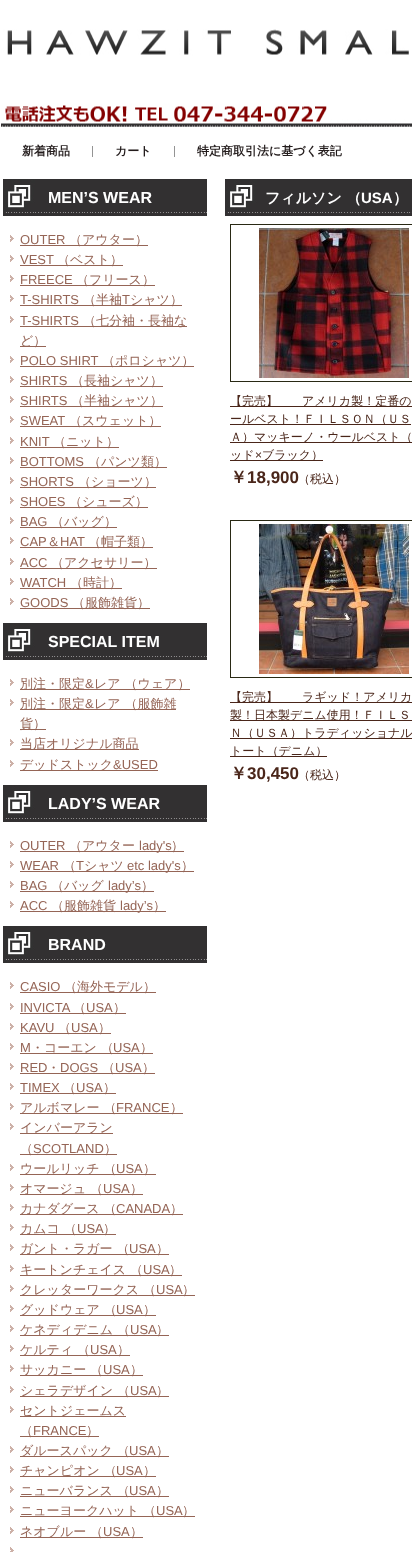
<!DOCTYPE html>
<meta charset="utf-8">
<style>body { margin: 0 } canvas { display: block }</style>
<canvas id="canvas" width="412" height="1552"></canvas>
<script type="module">
  const canvas = document.getElementById("canvas");
  const g = canvas.getContext("2d");
  g.miterLimit = 4;
  g.fontKerning = "normal";
  function drawText(s, x, y, [font, color]) {
    g.font = font;
    g.fillStyle = color;
    g.fillText(s, x, y);
  }
  function fillBox(x, y, w, h, color) {
    g.fillStyle = color;
    g.fillRect(x, y, w, h);
  }
  async function drawPicture(src, x, y, w, h) {
    const img = new Image();
    img.src = src;
    await img.decode();
    g.drawImage(img, x, y, w, h);
  }

  const s1 = ["bold 12px WenQuanYi Zen Hei", "#231C1C"];
  const s2 = ["bold 16px Liberation Sans", "#FFFFFF"];
  const s3 = ["13px Liberation Sans", "#956556"];
  const s4 = ["500 13px WenQuanYi Zen Hei", "#956556"];
  const s5 = ["bold 15px WenQuanYi Zen Hei", "#FFFFFF"];
  const s6 = ["bold 15px Liberation Sans", "#FFFFFF"];
  const s7 = ["500 12px WenQuanYi Zen Hei", "#4A261A"];
  const s8 = ["12px Liberation Sans", "#4A261A"];
  const s9 = ["bold 17px WenQuanYi Zen Hei", "#4A261A"];
  const s10 = ["bold 17px Liberation Sans", "#4A261A"];

  fillBox(0, 0, 412, 1552, "#FFFFFF");
  await drawPicture("pic1.png", 1, 29, 411, 98);
  drawText("新着商品", 22, 155, s1);
  fillBox(92, 146, 1, 11, "#949494");
  drawText("カート", 115, 155, s1);
  fillBox(174, 146, 1, 11, "#949494");
  drawText("特定商取引法に基づく表記", 197, 155, s1);
  await drawPicture("pic2.png", 3, 179, 204, 37);
  drawText("MEN’S WEAR", 48, 203, s2);
  await drawPicture("pic3.png", 10, 235, 4, 7);
  drawText("OUTER", 20, 244, s3);
  fillBox(20, 245, 128, 1, "#956556");
  drawText("（アウター）", 69, 244, s4);
  await drawPicture("pic3.png", 10, 255, 4, 7);
  drawText("VEST", 20, 264, s3);
  fillBox(20, 265, 103, 1, "#956556");
  drawText("（ベスト）", 57, 264, s4);
  await drawPicture("pic3.png", 10, 275, 4, 7);
  drawText("FREECE", 20, 284, s3);
  fillBox(20, 285, 135, 1, "#956556");
  drawText("（フリース）", 76, 284, s4);
  await drawPicture("pic3.png", 10, 295, 4, 7);
  drawText("T-SHIRTS", 20, 304, s3);
  fillBox(20, 305, 162, 1, "#956556");
  drawText("（半袖", 83, 304, s4);
  drawText("T", 122, 304, s3);
  drawText("シャツ）", 130, 304, s4);
  await drawPicture("pic3.png", 10, 316, 4, 7);
  drawText("T-SHIRTS", 20, 325, s3);
  fillBox(20, 326, 167, 1, "#956556");
  drawText("（七分袖・長袖な", 83, 325, s4);
  fillBox(20, 346, 26, 1, "#956556");
  drawText("ど）", 20, 345, s4);
  await drawPicture("pic3.png", 10, 356, 4, 7);
  drawText("POLO SHIRT", 20, 365, s3);
  fillBox(20, 366, 174, 1, "#956556");
  drawText("（ポロシャツ）", 102, 365, s4);
  await drawPicture("pic3.png", 10, 376, 4, 7);
  drawText("SHIRTS", 20, 385, s3);
  fillBox(20, 386, 143, 1, "#956556");
  drawText("（長袖シャツ）", 71, 385, s4);
  await drawPicture("pic3.png", 10, 396, 4, 7);
  drawText("SHIRTS", 20, 405, s3);
  fillBox(20, 406, 143, 1, "#956556");
  drawText("（半袖シャツ）", 71, 405, s4);
  await drawPicture("pic3.png", 10, 416, 4, 7);
  drawText("SWEAT", 20, 425, s3);
  fillBox(20, 426, 141, 1, "#956556");
  drawText("（スウェット）", 69, 425, s4);
  await drawPicture("pic3.png", 10, 437, 4, 7);
  drawText("KNIT", 20, 446, s3);
  fillBox(20, 447, 99, 1, "#956556");
  drawText("（ニット）", 53, 446, s4);
  await drawPicture("pic3.png", 10, 457, 4, 7);
  drawText("BOTTOMS", 20, 466, s3);
  fillBox(20, 467, 147, 1, "#956556");
  drawText("（パンツ類）", 88, 466, s4);
  await drawPicture("pic3.png", 10, 477, 4, 7);
  drawText("SHORTS", 20, 486, s3);
  fillBox(20, 487, 136, 1, "#956556");
  drawText("（ショーツ）", 78, 486, s4);
  await drawPicture("pic3.png", 10, 497, 4, 7);
  drawText("SHOES", 20, 506, s3);
  fillBox(20, 507, 128, 1, "#956556");
  drawText("（シューズ）", 69, 506, s4);
  await drawPicture("pic3.png", 10, 517, 4, 7);
  drawText("BAG", 20, 526, s3);
  fillBox(20, 527, 97, 1, "#956556");
  drawText("（バッグ）", 51, 526, s4);
  await drawPicture("pic3.png", 10, 537, 4, 7);
  drawText("CAP", 20, 546, s3);
  drawText("＆", 47, 546, s4);
  drawText("HAT", 60, 546, s3);
  fillBox(20, 547, 133, 1, "#956556");
  drawText("（帽子類）", 88, 546, s4);
  await drawPicture("pic3.png", 10, 558, 4, 7);
  drawText("ACC", 20, 567, s3);
  fillBox(20, 568, 137, 1, "#956556");
  drawText("（アクセサリー）", 51, 567, s4);
  await drawPicture("pic3.png", 10, 578, 4, 7);
  drawText("WATCH", 20, 587, s3);
  fillBox(20, 588, 102, 1, "#956556");
  drawText("（時計）", 70, 587, s4);
  await drawPicture("pic3.png", 10, 598, 4, 7);
  drawText("GOODS", 20, 607, s3);
  fillBox(20, 608, 130, 1, "#956556");
  drawText("（服飾雑貨）", 72, 607, s4);
  await drawPicture("pic2.png", 3, 623, 204, 37);
  drawText("SPECIAL ITEM", 48, 647, s2);
  await drawPicture("pic3.png", 10, 679, 4, 7);
  fillBox(20, 689, 170, 1, "#956556");
  drawText("別注・限定", 20, 688, s4);
  drawText("&", 85, 688, s3);
  drawText("レア （ウェア）", 94, 688, s4);
  await drawPicture("pic3.png", 10, 699, 4, 7);
  fillBox(20, 709, 156, 1, "#956556");
  drawText("別注・限定", 20, 708, s4);
  drawText("&", 85, 708, s3);
  drawText("レア （服飾雑", 94, 708, s4);
  fillBox(20, 729, 26, 1, "#956556");
  drawText("貨）", 20, 728, s4);
  await drawPicture("pic3.png", 10, 739, 4, 7);
  fillBox(20, 749, 119, 1, "#956556");
  drawText("当店オリジナル商品", 20, 748, s4);
  await drawPicture("pic3.png", 10, 760, 4, 7);
  fillBox(20, 770, 138, 1, "#956556");
  drawText("デッドストック", 20, 769, s4);
  drawText("&USED", 113, 769, s3);
  await drawPicture("pic2.png", 3, 785, 204, 37);
  drawText("LADY’S WEAR", 48, 809, s2);
  await drawPicture("pic3.png", 10, 841, 4, 7);
  drawText("OUTER", 20, 850, s3);
  fillBox(20, 851, 164, 1, "#956556");
  drawText("（アウター", 69, 850, s4);
  drawText("lady's", 139, 850, s3);
  drawText("）", 171, 850, s4);
  await drawPicture("pic3.png", 10, 861, 4, 7);
  drawText("WEAR", 20, 870, s3);
  fillBox(20, 871, 174, 1, "#956556");
  drawText("（", 63, 870, s4);
  drawText("T", 76, 870, s3);
  drawText("シャツ", 84, 870, s4);
  drawText("etc lady's", 127, 870, s3);
  drawText("）", 181, 870, s4);
  await drawPicture("pic3.png", 10, 881, 4, 7);
  drawText("BAG", 20, 890, s3);
  fillBox(20, 891, 134, 1, "#956556");
  drawText("（バッグ", 51, 890, s4);
  drawText("lady’s", 108, 890, s3);
  drawText("）", 141, 890, s4);
  await drawPicture("pic3.png", 10, 901, 4, 7);
  drawText("ACC", 20, 910, s3);
  fillBox(20, 911, 146, 1, "#956556");
  drawText("（服飾雑貨", 51, 910, s4);
  drawText("lady’s", 120, 910, s3);
  drawText("）", 153, 910, s4);
  await drawPicture("pic2.png", 3, 926, 204, 37);
  drawText("BRAND", 48, 950, s2);
  await drawPicture("pic3.png", 10, 982, 4, 7);
  drawText("CASIO", 20, 991, s3);
  fillBox(20, 992, 136, 1, "#956556");
  drawText("（海外モデル）", 64, 991, s4);
  await drawPicture("pic3.png", 10, 1003, 4, 7);
  drawText("INVICTA", 20, 1012, s3);
  fillBox(20, 1013, 106, 1, "#956556");
  drawText("（", 73, 1012, s4);
  drawText("USA", 86, 1012, s3);
  drawText("）", 113, 1012, s4);
  await drawPicture("pic3.png", 10, 1023, 4, 7);
  drawText("KAVU", 20, 1032, s3);
  fillBox(20, 1033, 91, 1, "#956556");
  drawText("（", 58, 1032, s4);
  drawText("USA", 71, 1032, s3);
  drawText("）", 98, 1032, s4);
  await drawPicture("pic3.png", 10, 1043, 4, 7);
  drawText("M", 20, 1052, s3);
  fillBox(20, 1053, 133, 1, "#956556");
  drawText("・コーエン （", 31, 1052, s4);
  drawText("USA", 113, 1052, s3);
  drawText("）", 140, 1052, s4);
  await drawPicture("pic3.png", 10, 1063, 4, 7);
  drawText("RED", 20, 1072, s3);
  drawText("・", 47, 1072, s4);
  drawText("DOGS", 60, 1072, s3);
  fillBox(20, 1073, 135, 1, "#956556");
  drawText("（", 102, 1072, s4);
  drawText("USA", 115, 1072, s3);
  drawText("）", 142, 1072, s4);
  await drawPicture("pic3.png", 10, 1083, 4, 7);
  drawText("TIMEX", 20, 1092, s3);
  fillBox(20, 1093, 96, 1, "#956556");
  drawText("（", 63, 1092, s4);
  drawText("USA", 76, 1092, s3);
  drawText("）", 103, 1092, s4);
  await drawPicture("pic3.png", 10, 1103, 4, 7);
  fillBox(20, 1113, 163, 1, "#956556");
  drawText("アルボマレー （", 20, 1112, s4);
  drawText("FRANCE", 116, 1112, s3);
  drawText("）", 170, 1112, s4);
  await drawPicture("pic3.png", 10, 1123, 4, 7);
  fillBox(20, 1133, 93, 1, "#956556");
  drawText("インバーアラン", 20, 1132, s4);
  fillBox(20, 1154, 97, 1, "#956556");
  drawText("（", 20, 1153, s4);
  drawText("SCOTLAND", 33, 1153, s3);
  drawText("）", 104, 1153, s4);
  await drawPicture("pic3.png", 10, 1164, 4, 7);
  fillBox(20, 1174, 136, 1, "#956556");
  drawText("ウールリッチ （", 20, 1173, s4);
  drawText("USA", 116, 1173, s3);
  drawText("）", 143, 1173, s4);
  await drawPicture("pic3.png", 10, 1184, 4, 7);
  fillBox(20, 1194, 123, 1, "#956556");
  drawText("オマージュ （", 20, 1193, s4);
  drawText("USA", 103, 1193, s3);
  drawText("）", 130, 1193, s4);
  await drawPicture("pic3.png", 10, 1204, 4, 7);
  fillBox(20, 1214, 163, 1, "#956556");
  drawText("カナダグース （", 20, 1213, s4);
  drawText("CANADA", 116, 1213, s3);
  drawText("）", 170, 1213, s4);
  await drawPicture("pic3.png", 10, 1224, 4, 7);
  fillBox(20, 1234, 96, 1, "#956556");
  drawText("カムコ （", 20, 1233, s4);
  drawText("USA", 77, 1233, s3);
  drawText("）", 103, 1233, s4);
  await drawPicture("pic3.png", 10, 1244, 4, 7);
  fillBox(20, 1254, 149, 1, "#956556");
  drawText("ガント・ラガー （", 20, 1253, s4);
  drawText("USA", 129, 1253, s3);
  drawText("）", 156, 1253, s4);
  await drawPicture("pic3.png", 10, 1265, 4, 7);
  fillBox(20, 1275, 162, 1, "#956556");
  drawText("キートンチェイス （", 20, 1274, s4);
  drawText("USA", 143, 1274, s3);
  drawText("）", 169, 1274, s4);
  await drawPicture("pic3.png", 10, 1285, 4, 7);
  fillBox(20, 1295, 175, 1, "#956556");
  drawText("クレッターワークス （", 20, 1294, s4);
  drawText("USA", 156, 1294, s3);
  drawText("）", 182, 1294, s4);
  await drawPicture("pic3.png", 10, 1305, 4, 7);
  fillBox(20, 1315, 136, 1, "#956556");
  drawText("グッドウェア （", 20, 1314, s4);
  drawText("USA", 116, 1314, s3);
  drawText("）", 143, 1314, s4);
  await drawPicture("pic3.png", 10, 1325, 4, 7);
  fillBox(20, 1335, 149, 1, "#956556");
  drawText("ケネディデニム （", 20, 1334, s4);
  drawText("USA", 130, 1334, s3);
  drawText("）", 156, 1334, s4);
  await drawPicture("pic3.png", 10, 1345, 4, 7);
  fillBox(20, 1355, 110, 1, "#956556");
  drawText("ケルティ （", 20, 1354, s4);
  drawText("USA", 90, 1354, s3);
  drawText("）", 117, 1354, s4);
  await drawPicture("pic3.png", 10, 1365, 4, 7);
  fillBox(20, 1375, 123, 1, "#956556");
  drawText("サッカニー （", 20, 1374, s4);
  drawText("USA", 103, 1374, s3);
  drawText("）", 130, 1374, s4);
  await drawPicture("pic3.png", 10, 1386, 4, 7);
  fillBox(20, 1396, 149, 1, "#956556");
  drawText("シェラデザイン （", 20, 1395, s4);
  drawText("USA", 130, 1395, s3);
  drawText("）", 156, 1395, s4);
  await drawPicture("pic3.png", 10, 1406, 4, 7);
  fillBox(20, 1416, 106, 1, "#956556");
  drawText("セントジェームス", 20, 1415, s4);
  fillBox(20, 1436, 79, 1, "#956556");
  drawText("（", 20, 1435, s4);
  drawText("FRANCE", 33, 1435, s3);
  drawText("）", 86, 1435, s4);
  await drawPicture("pic3.png", 10, 1446, 4, 7);
  fillBox(20, 1456, 149, 1, "#956556");
  drawText("ダルースパック （", 20, 1455, s4);
  drawText("USA", 129, 1455, s3);
  drawText("）", 156, 1455, s4);
  await drawPicture("pic3.png", 10, 1466, 4, 7);
  fillBox(20, 1476, 136, 1, "#956556");
  drawText("チャンピオン （", 20, 1475, s4);
  drawText("USA", 116, 1475, s3);
  drawText("）", 143, 1475, s4);
  await drawPicture("pic3.png", 10, 1486, 4, 7);
  fillBox(20, 1496, 149, 1, "#956556");
  drawText("ニューバランス （", 20, 1495, s4);
  drawText("USA", 129, 1495, s3);
  drawText("）", 156, 1495, s4);
  await drawPicture("pic3.png", 10, 1506, 4, 7);
  fillBox(20, 1516, 175, 1, "#956556");
  drawText("ニューヨークハット （", 20, 1515, s4);
  drawText("USA", 156, 1515, s3);
  drawText("）", 182, 1515, s4);
  await drawPicture("pic3.png", 10, 1527, 4, 7);
  fillBox(20, 1537, 123, 1, "#956556");
  drawText("ネオブルー （", 20, 1536, s4);
  drawText("USA", 103, 1536, s3);
  drawText("）", 130, 1536, s4);
  await drawPicture("pic4.png", 10, 1547, 4, 5);
  await drawPicture("pic5.png", 225, 179, 187, 37);
  drawText("フィルソン （", 265, 203, s5);
  drawText("USA", 361, 203, s6);
  drawText("）", 393, 203, s5);
  g.strokeStyle = "#292914";
  g.strokeRect(230.5, 224.5, 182, 157);
  await drawPicture("pic6.png", 259, 228, 150, 150);
  fillBox(230, 406, 182, 1, "#4A261A");
  drawText("【完売】　　アメリカ製！定番の", 230, 405, s7);
  fillBox(230, 424, 181, 1, "#4A261A");
  drawText("ールベスト！ＦＩＬＳＯＮ（ＵＳ", 230, 423, s7);
  fillBox(230, 442, 182, 1, "#4A261A");
  drawText("Ａ）マッキーノ・ウールベスト（", 230, 441, s7);
  fillBox(230, 460, 93, 1, "#4A261A");
  drawText("ッド", 230, 459, s7);
  drawText("×", 255, 459, s8);
  drawText("ブラック）", 262, 459, s7);
  drawText("￥", 230, 483, s9);
  drawText("18,900", 247, 483, s10);
  drawText("（税込）", 298, 483, s7);
  g.strokeRect(230.5, 520.5, 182, 157);
  await drawPicture("pic7.png", 259, 524, 150, 150);
  fillBox(230, 702, 182, 1, "#4A261A");
  drawText("【完売】　　ラギッド！アメリカ", 230, 701, s7);
  fillBox(230, 720, 182, 1, "#4A261A");
  drawText("製！日本製デニム使用！ＦＩＬＳ", 230, 719, s7);
  fillBox(230, 738, 182, 1, "#4A261A");
  drawText("Ｎ（ＵＳＡ）トラディッショナル", 230, 737, s7);
  fillBox(230, 756, 97, 1, "#4A261A");
  drawText("トート（デニム）", 230, 755, s7);
  drawText("￥", 230, 779, s9);
  drawText("30,450", 247, 779, s10);
  drawText("（税込）", 298, 779, s7);
</script>
